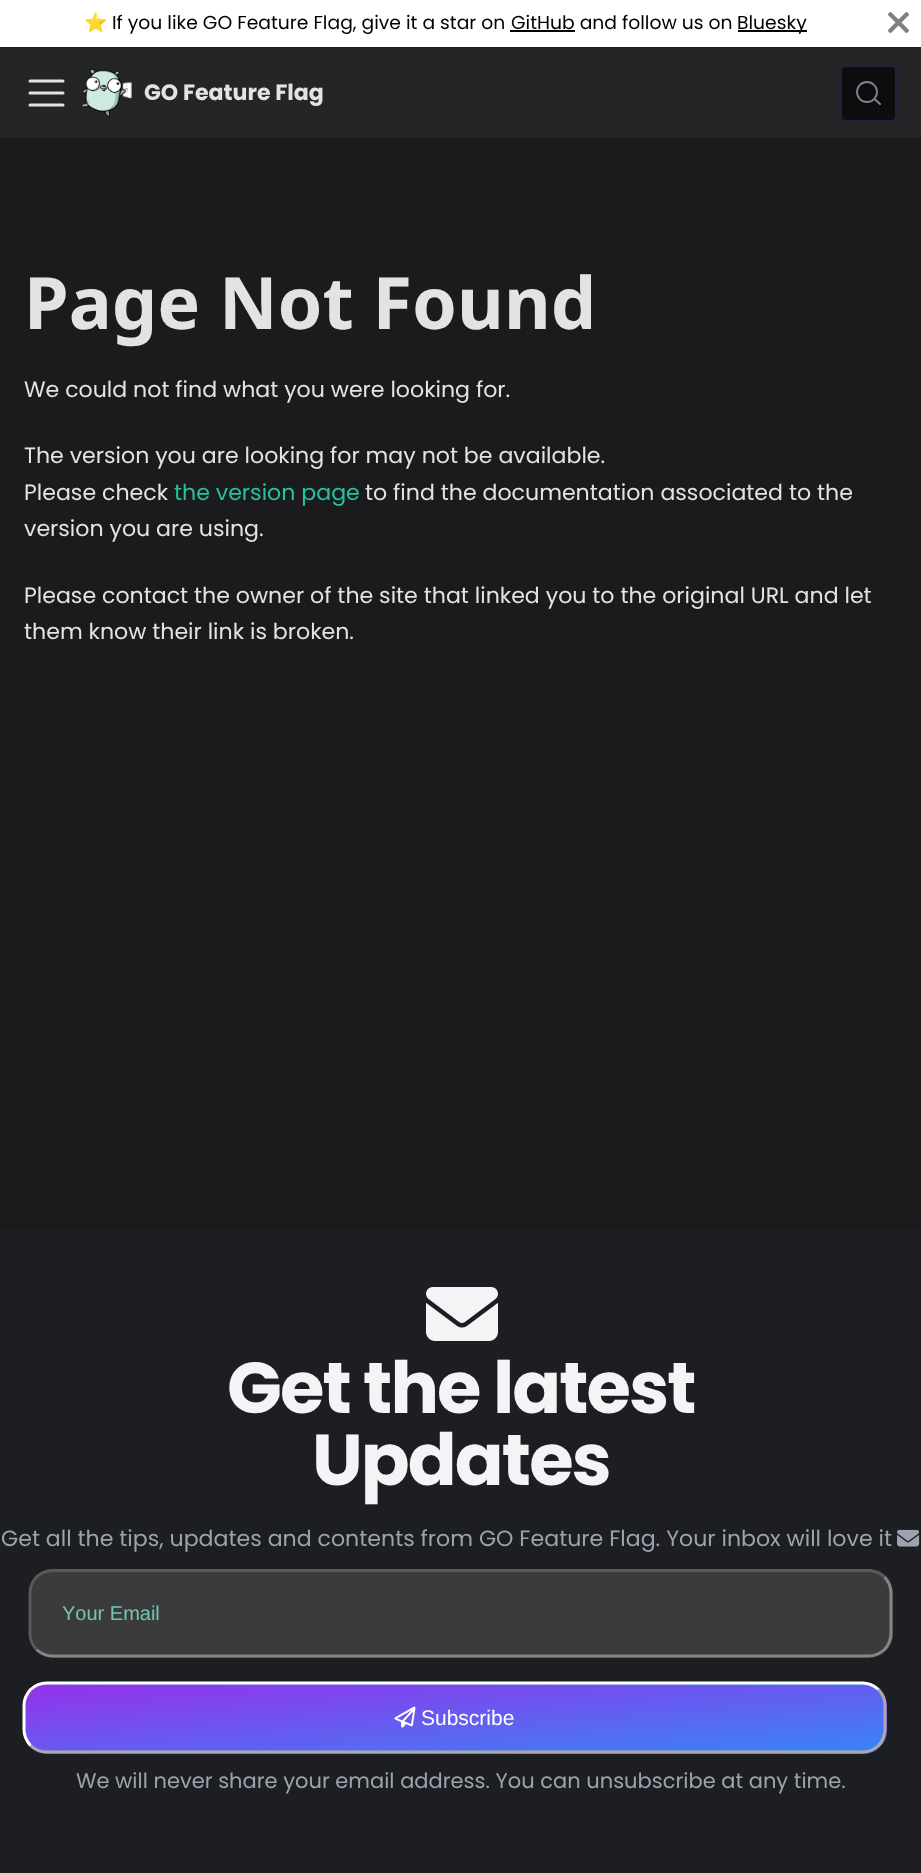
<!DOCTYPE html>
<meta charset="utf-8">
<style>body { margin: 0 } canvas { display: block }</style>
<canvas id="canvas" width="921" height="1873"></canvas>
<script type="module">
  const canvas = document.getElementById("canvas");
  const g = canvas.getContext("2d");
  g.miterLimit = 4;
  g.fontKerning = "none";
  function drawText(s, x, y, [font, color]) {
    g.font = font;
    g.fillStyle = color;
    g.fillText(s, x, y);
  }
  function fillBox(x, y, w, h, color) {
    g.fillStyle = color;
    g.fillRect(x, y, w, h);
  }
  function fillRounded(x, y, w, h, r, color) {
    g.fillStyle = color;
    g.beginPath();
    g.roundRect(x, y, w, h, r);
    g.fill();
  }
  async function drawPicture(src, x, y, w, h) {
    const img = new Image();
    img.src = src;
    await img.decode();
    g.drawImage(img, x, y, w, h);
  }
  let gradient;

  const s1 = ["18.75px Noto Color Emoji", "#000000"];
  const s2 = ["18.75px Poppins", "#000000"];
  const s3 = ["bold 22.1px Poppins", "#E3E3E3"];
  const s4 = ["bold 72px Noto Sans", "#E3E3E3"];
  const s5 = ["22.1px Poppins", "#E3E3E3"];
  const s6 = ["22.1px Poppins", "#25C2A0"];
  const s7 = ["bold 72px Poppins", "#F3F4F6"];
  const s8 = ["22.1px Poppins", "#9CA3AF"];
  const s9 = ["20px Liberation Sans", "#73C6B6"];
  const s10 = ["21px Liberation Sans", "#FFFFFF"];
  const s11 = ["21px Poppins", "#9CA3AF"];

  fillBox(0, 0, 921, 1873, "#1B1B1D");
  fillBox(0, 0, 921, 47, "#FFFFFF");
  fillBox(0, 47, 921, 1, "#1C1E21");
  drawText("⭐", 84, 29, s1);
  drawText("If you like GO Feature Flag, give it a star on", 112, 29, s2);
  drawText("GitHub and follow us on", 511, 29, s2);
  fillBox(510, 30, 65, 2, "#000000");
  fillBox(738, 30, 69, 2, "#000000");
  drawText("Bluesky", 737, 29, s2);
  g.save();
  g.beginPath();
  g.rect(888, 12, 21, 21);
  g.clip();
  g.beginPath();
  g.moveTo(889, 13);
  g.lineTo(908, 32);
  g.moveTo(908, 13);
  g.lineTo(889, 32);
  g.strokeStyle = "#808080";
  g.lineWidth = 4.3;
  g.stroke();
  g.restore();
  fillBox(0, 48, 921, 90, "#242526");
  g.beginPath();
  g.moveTo(30, 81);
  g.lineTo(63, 81);
  g.moveTo(30, 93);
  g.lineTo(63, 93);
  g.moveTo(30, 105);
  g.lineTo(63, 105);
  g.strokeStyle = "#E3E3E3";
  g.lineWidth = 3;
  g.lineCap = "round";
  g.stroke();
  await drawPicture("pic1.png", 81, 69, 51, 48);
  drawText("GO Feature Flag", 144, 100, s3);
  g.fillStyle = "#0D0D0D";
  g.beginPath();
  g.roundRect(841, 66, 55, 55, 5);
  g.fill();
  g.strokeStyle = "#212139";
  g.lineWidth = 2;
  g.stroke();
  g.beginPath();
  g.arc(867, 92, 10, 0, Math.PI * 2);
  g.strokeStyle = "#7F8497";
  g.lineWidth = 1.8;
  g.stroke();
  g.beginPath();
  g.moveTo(880, 104);
  g.lineTo(874.5, 99);
  g.lineWidth = 2;
  g.lineJoin = "round";
  g.stroke();
  drawText("Page Not Found", 24, 329, s4);
  drawText("We could not find what you were looking for.", 24, 397, s5);
  drawText("The version you are looking for may not be available.", 24, 463, s5);
  drawText("Please check", 24, 500, s5);
  drawText("the version page", 174, 500, s6);
  drawText("to find the documentation associated to the", 365, 500, s5);
  drawText("version you are using.", 24, 536, s5);
  drawText("Please contact the owner of the site that linked you to the original URL and let", 24, 603, s5);
  drawText("them know their link is broken.", 24, 639, s5);
  fillBox(0, 1230, 921, 643, "#1C1E21");
  await drawPicture("pic2.png", 426, 1287, 72, 54);
  g.letterSpacing = "-1.9px";
  drawText("Get the latest", 227, 1413, s7);
  drawText("Updates", 312, 1485, s7);
  g.letterSpacing = "0px";
  drawText("Get all the tips, updates and contents from GO Feature Flag. Your inbox will love it", 1, 1546, s8);
  await drawPicture("pic3.png", 897, 1529, 23, 18);
  fillRounded(29, 1569, 864, 89, 24, "#3B3B3B");
  g.beginPath();
  g.moveTo(884.5, 1577);
  g.bezierCurveTo(888.5, 1581.5, 891, 1587, 891, 1593);
  g.lineTo(891, 1633.5);
  g.bezierCurveTo(891, 1639.5, 888.5, 1645, 884.5, 1649.5);
  g.bezierCurveTo(880, 1653.5, 874.5, 1656, 868.5, 1656);
  g.lineTo(52.5, 1656);
  g.bezierCurveTo(46.5, 1656, 41, 1653.5, 36.5, 1649.5);
  g.strokeStyle = "#858585";
  g.lineWidth = 3;
  g.lineCap = "butt";
  g.lineJoin = "miter";
  g.stroke();
  g.beginPath();
  g.moveTo(36.5, 1649.5);
  g.bezierCurveTo(32.5, 1645, 30, 1639.5, 30, 1633.5);
  g.lineTo(30, 1593);
  g.bezierCurveTo(30, 1587, 32.5, 1581.5, 36.5, 1577);
  g.bezierCurveTo(41, 1573, 46.5, 1570.5, 52.5, 1570.5);
  g.lineTo(868.5, 1570.5);
  g.bezierCurveTo(874.5, 1570.5, 880, 1573, 884.5, 1577);
  g.strokeStyle = "#595959";
  g.stroke();
  drawText("Your Email", 62, 1620, s9);
  g.save();
  g.beginPath();
  g.roundRect(23, 1682, 864, 72, 24);
  g.clip();
  gradient = g.createLinearGradient(449, 1586, 460, 1717);
  gradient.addColorStop(0, "#9333EA");
  gradient.addColorStop(1, "#3B82F6");
  g.fillStyle = gradient;
  g.fillRect(35, 1682, 840, 3);
  gradient = g.createLinearGradient(-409, 1652, -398, 1783);
  gradient.addColorStop(0, "#9333EA");
  gradient.addColorStop(1, "#3B82F6");
  g.fillStyle = gradient;
  g.fillRect(23, 1694, 3, 48);
  gradient = g.createLinearGradient(449, 1652, 460, 1783);
  gradient.addColorStop(0, "#9333EA");
  gradient.addColorStop(1, "#3B82F6");
  g.fillStyle = gradient;
  g.fillRect(26, 1685, 858, 66);
  gradient = g.createLinearGradient(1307, 1652, 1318, 1783);
  gradient.addColorStop(0, "#9333EA");
  gradient.addColorStop(1, "#3B82F6");
  g.fillStyle = gradient;
  g.fillRect(884, 1694, 3, 48);
  gradient = g.createLinearGradient(449, 1718, 460, 1849);
  gradient.addColorStop(0, "#9333EA");
  gradient.addColorStop(1, "#3B82F6");
  g.fillStyle = gradient;
  g.fillRect(35, 1751, 840, 3);
  g.restore();
  g.beginPath();
  g.moveTo(878.5, 1689.5);
  g.bezierCurveTo(882.5, 1694, 885, 1699.5, 885, 1705.5);
  g.lineTo(885, 1729.5);
  g.bezierCurveTo(885, 1735.5, 882.5, 1741, 878.5, 1745.5);
  g.bezierCurveTo(874, 1749.5, 868.5, 1752, 862.5, 1752);
  g.lineTo(46.5, 1752);
  g.bezierCurveTo(40.5, 1752, 35, 1749.5, 30.5, 1745.5);
  g.strokeStyle = "#AAAAAA";
  g.stroke();
  g.beginPath();
  g.moveTo(30.5, 1745.5);
  g.bezierCurveTo(26.5, 1741, 24, 1735.5, 24, 1729.5);
  g.lineTo(24, 1705.5);
  g.bezierCurveTo(24, 1699.5, 26.5, 1694, 30.5, 1689.5);
  g.bezierCurveTo(35, 1685.5, 40.5, 1683, 46.5, 1683);
  g.lineTo(862.5, 1683);
  g.bezierCurveTo(868.5, 1683, 874, 1685.5, 878.5, 1689.5);
  g.strokeStyle = "#FFFFFF";
  g.stroke();
  await drawPicture("pic4.png", 394, 1706, 22, 22);
  drawText("Subscribe", 421, 1725, s10);
  drawText("We will never share your email address. You can unsubscribe at any time.", 76, 1788, s11);
</script>
